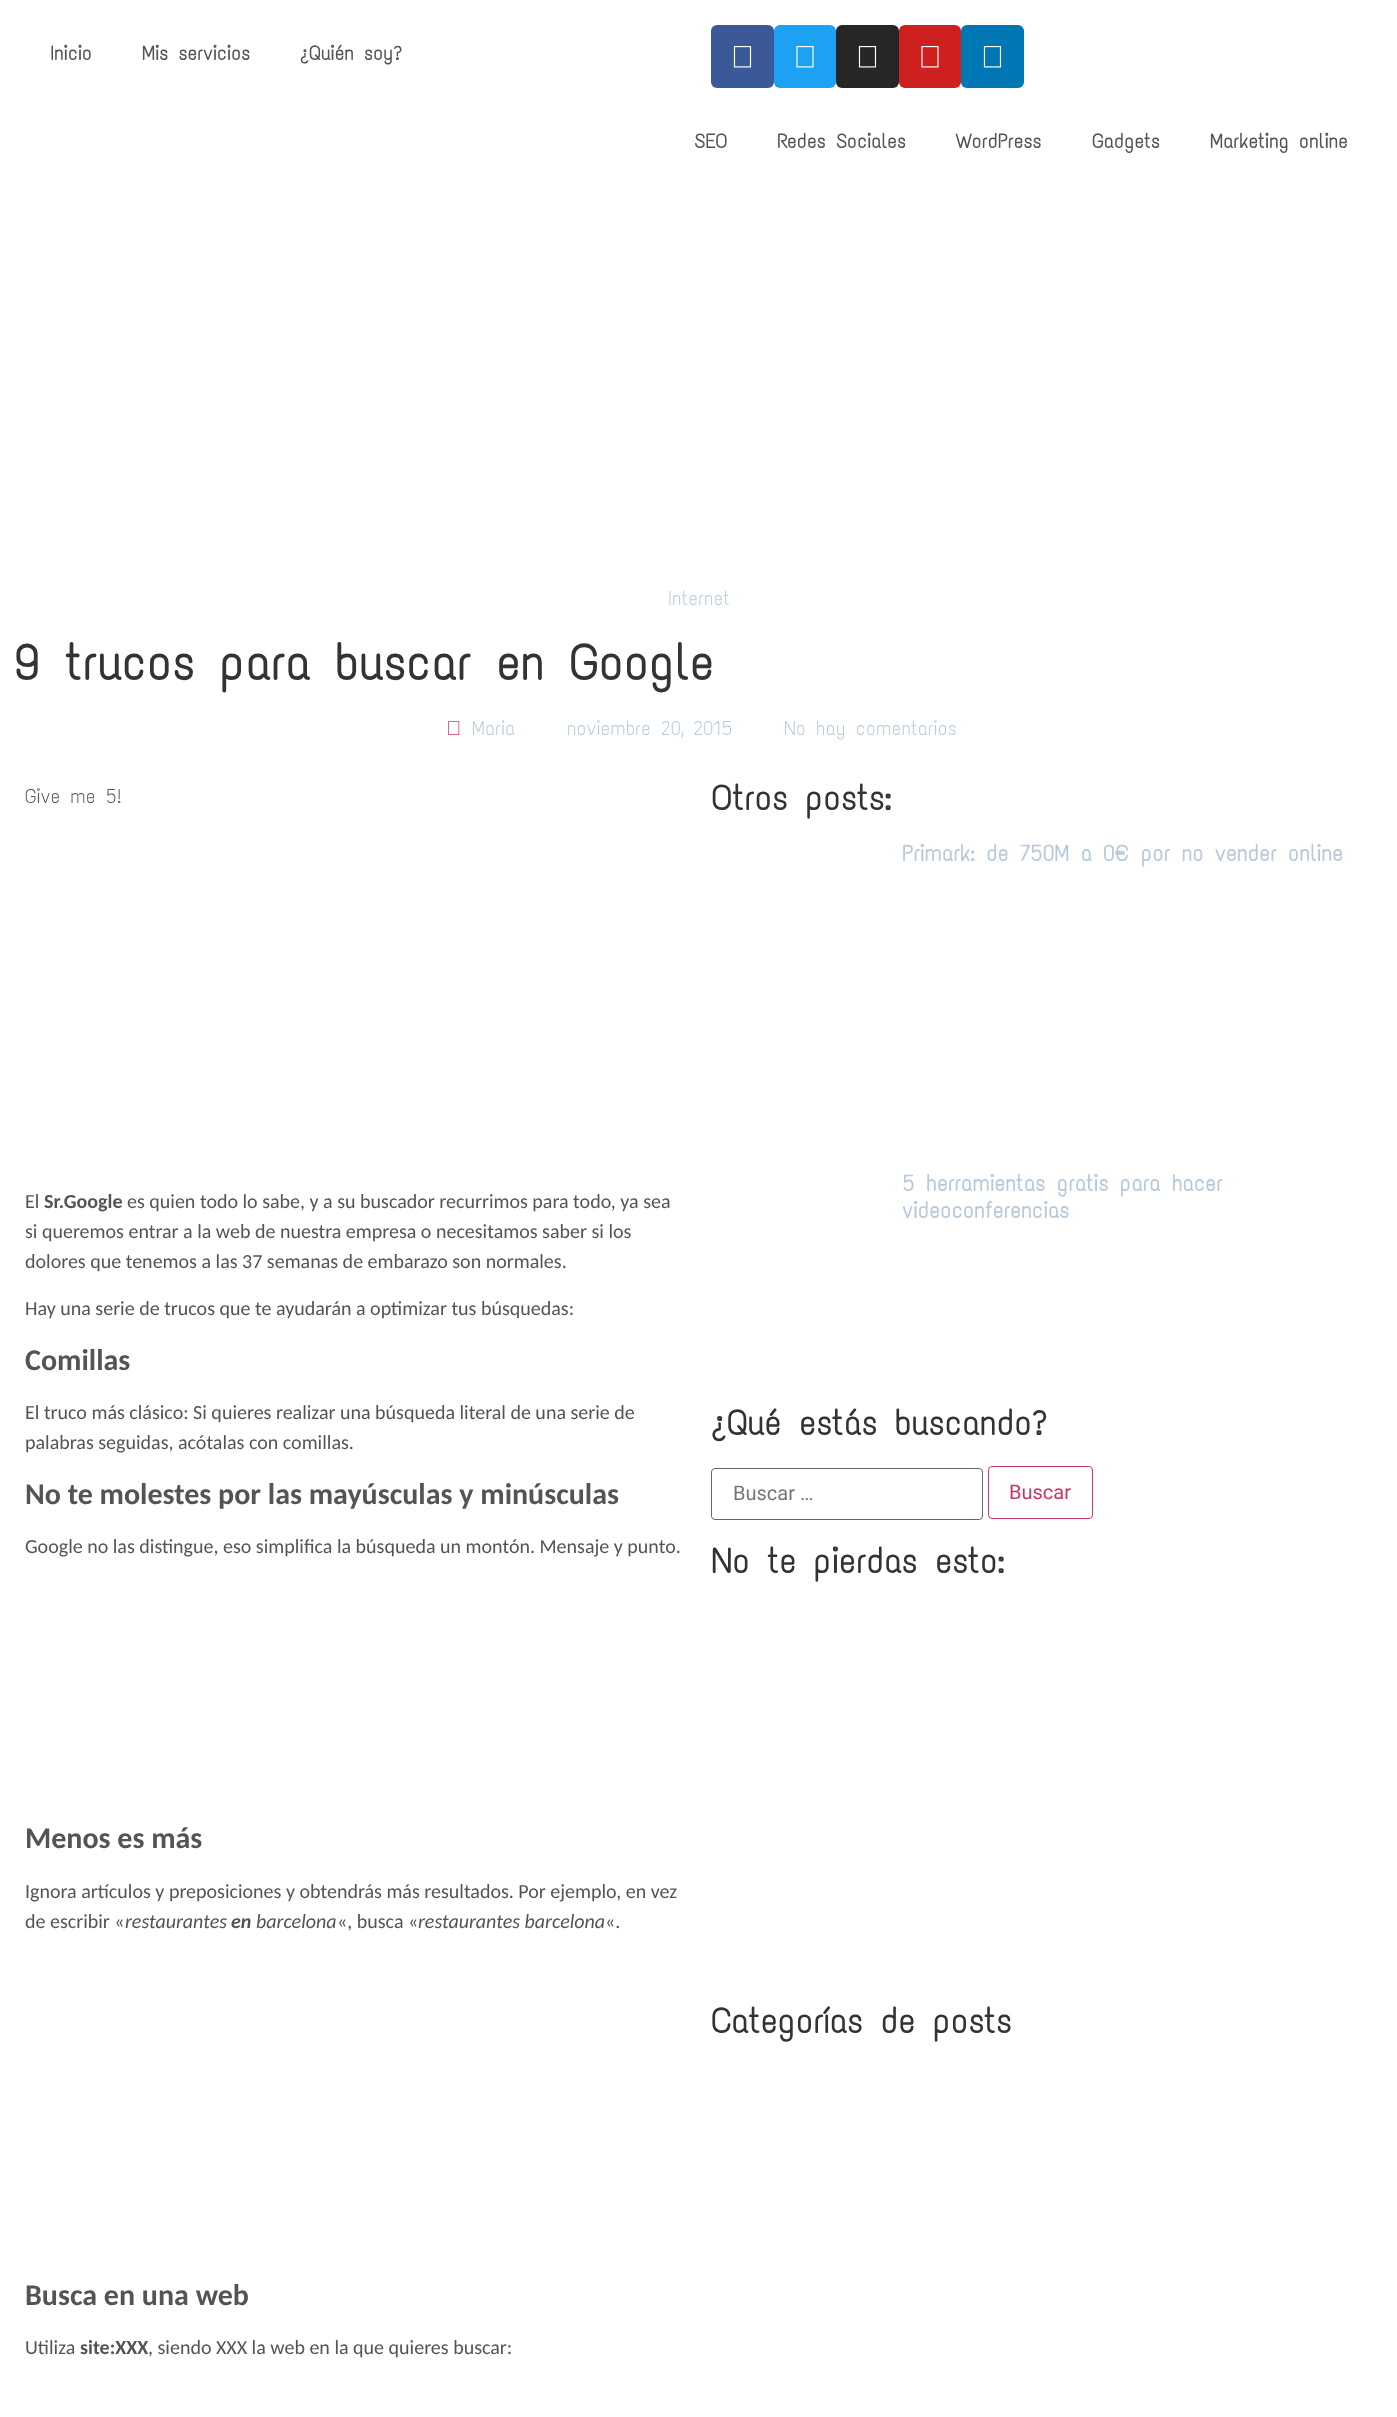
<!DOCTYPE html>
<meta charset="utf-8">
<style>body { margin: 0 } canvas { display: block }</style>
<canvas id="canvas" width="1397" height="2417"></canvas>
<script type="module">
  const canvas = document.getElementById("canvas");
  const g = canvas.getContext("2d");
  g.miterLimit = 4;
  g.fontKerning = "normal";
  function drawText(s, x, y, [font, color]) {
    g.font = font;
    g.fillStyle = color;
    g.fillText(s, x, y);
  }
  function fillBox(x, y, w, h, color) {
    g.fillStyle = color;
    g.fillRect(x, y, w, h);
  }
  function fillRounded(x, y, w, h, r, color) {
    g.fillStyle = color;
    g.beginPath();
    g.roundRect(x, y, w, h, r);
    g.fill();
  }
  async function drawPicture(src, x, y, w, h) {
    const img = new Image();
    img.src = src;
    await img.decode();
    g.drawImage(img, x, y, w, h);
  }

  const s1 = ["bold 20px Text Me One", "#545454"];
  const s2 = ["20px Text Me One", "#B6C9DB"];
  const s3 = ["bold 50px Text Me One", "#333333"];
  const s4 = ["20px Text Me One", "#545454"];
  const s5 = ["20px Carlito", "#545454"];
  const s6 = ["bold 20px Carlito", "#545454"];
  const s7 = ["bold 30px Carlito", "#545454"];
  const s8 = ["italic 20px Carlito", "#545454"];
  const s9 = ["italic bold 20px Carlito", "#545454"];
  const s10 = ["bold 35px Text Me One", "#333333"];
  const s11 = ["bold 22.5px Text Me One", "#B6C9DB"];
  const s12 = ["20px Roboto", "#757575"];
  const s13 = ["20px Roboto", "#CC3366"];

  fillBox(0, 0, 1397, 2417, "#FFFFFF");
  drawText("Inicio", 50, 60, s1);
  drawText("Mis servicios", 142, 60, s1);
  drawText("¿Quién soy?", 300, 60, s1);
  fillRounded(711, 25, 63, 63, 6, "#3B5998");
  await drawPicture("pic1.png", 733, 46, 19, 22);
  fillRounded(774, 25, 62, 63, 6, "#1DA1F2");
  await drawPicture("pic2.png", 796, 46, 18, 22);
  fillRounded(836, 25, 63, 63, 6, "#262626");
  await drawPicture("pic3.png", 858, 46, 19, 22);
  fillRounded(899, 25, 62, 63, 6, "#CD201F");
  await drawPicture("pic4.png", 921, 46, 18, 22);
  fillRounded(961, 25, 63, 63, 6, "#0077B5");
  await drawPicture("pic5.png", 983, 46, 19, 22);
  drawText("SEO", 694, 148, s1);
  drawText("Redes Sociales", 777, 148, s1);
  drawText("WordPress", 956, 148, s1);
  drawText("Gadgets", 1092, 148, s1);
  drawText("Marketing online", 1210, 148, s1);
  drawText("Internet", 668, 605, s2);
  drawText("9 trucos para buscar en Google", 13, 680, s3);
  await drawPicture("pic6.png", 448, 721, 12, 14);
  drawText("Maria", 472, 735, s2);
  drawText("noviembre 20, 2015", 567, 735, s2);
  drawText("No hay comentarios", 784, 735, s2);
  drawText("Give me 5!", 25, 803, s4);
  drawText("El", 25, 1208, s5);
  drawText("Sr.Google", 44, 1208, s6);
  drawText("es quien todo lo sabe, y a su buscador recurrimos para todo, ya sea", 127, 1208, s5);
  drawText("si queremos entrar a la web de nuestra empresa o necesitamos saber si los", 25, 1238, s5);
  drawText("dolores que tenemos a las 37 semanas de embarazo son normales.", 25, 1268, s5);
  drawText("Hay una serie de trucos que te ayudarán a optimizar tus búsquedas:", 25, 1315, s5);
  drawText("Comillas", 25, 1370, s7);
  drawText("El truco más clásico: Si quieres realizar una búsqueda literal de una serie de", 25, 1419, s5);
  drawText("palabras seguidas, acótalas con comillas.", 25, 1449, s5);
  drawText("No te molestes por las mayúsculas y minúsculas", 25, 1504, s7);
  drawText("Google no las distingue, eso simplifica la búsqueda un montón. Mensaje y punto.", 25, 1553, s5);
  drawText("Menos es más", 25, 1848, s7);
  drawText("Ignora artículos y preposiciones y obtendrás más resultados. Por ejemplo, en vez", 25, 1898, s5);
  drawText("de escribir «", 25, 1928, s5);
  drawText("restaurantes", 125, 1928, s8);
  drawText("en", 231, 1928, s9);
  drawText("barcelona", 256, 1928, s8);
  drawText("«, busca «", 337, 1928, s5);
  drawText("restaurantes barcelona", 418, 1928, s8);
  drawText("«.", 605, 1928, s5);
  drawText("Busca en una web", 25, 2305, s7);
  drawText("Utiliza", 25, 2354, s5);
  drawText("site:XXX", 80, 2354, s6);
  drawText(", siendo XXX la web en la que quieres buscar:", 148, 2354, s5);
  drawText("Otros posts:", 711, 810, s10);
  drawText("Primark: de 750M a 0€ por no vender online", 902, 861, s11);
  drawText("5 herramientas gratis para hacer", 902, 1191, s11);
  drawText("videoconferencias", 902, 1218, s11);
  drawText("¿Qué estás buscando?", 711, 1435, s10);
  g.beginPath();
  g.roundRect(711.5, 1468.5, 271, 51, 3.5);
  g.strokeStyle = "#666666";
  g.stroke();
  drawText("Buscar …", 733, 1500, s12);
  g.beginPath();
  g.roundRect(988.5, 1466.5, 104, 52, 3.5);
  g.strokeStyle = "#CC3366";
  g.stroke();
  drawText("Buscar", 1009, 1499, s13);
  drawText("No te pierdas esto:", 711, 1573, s10);
  drawText("Categorías de posts", 711, 2033, s10);
</script>
